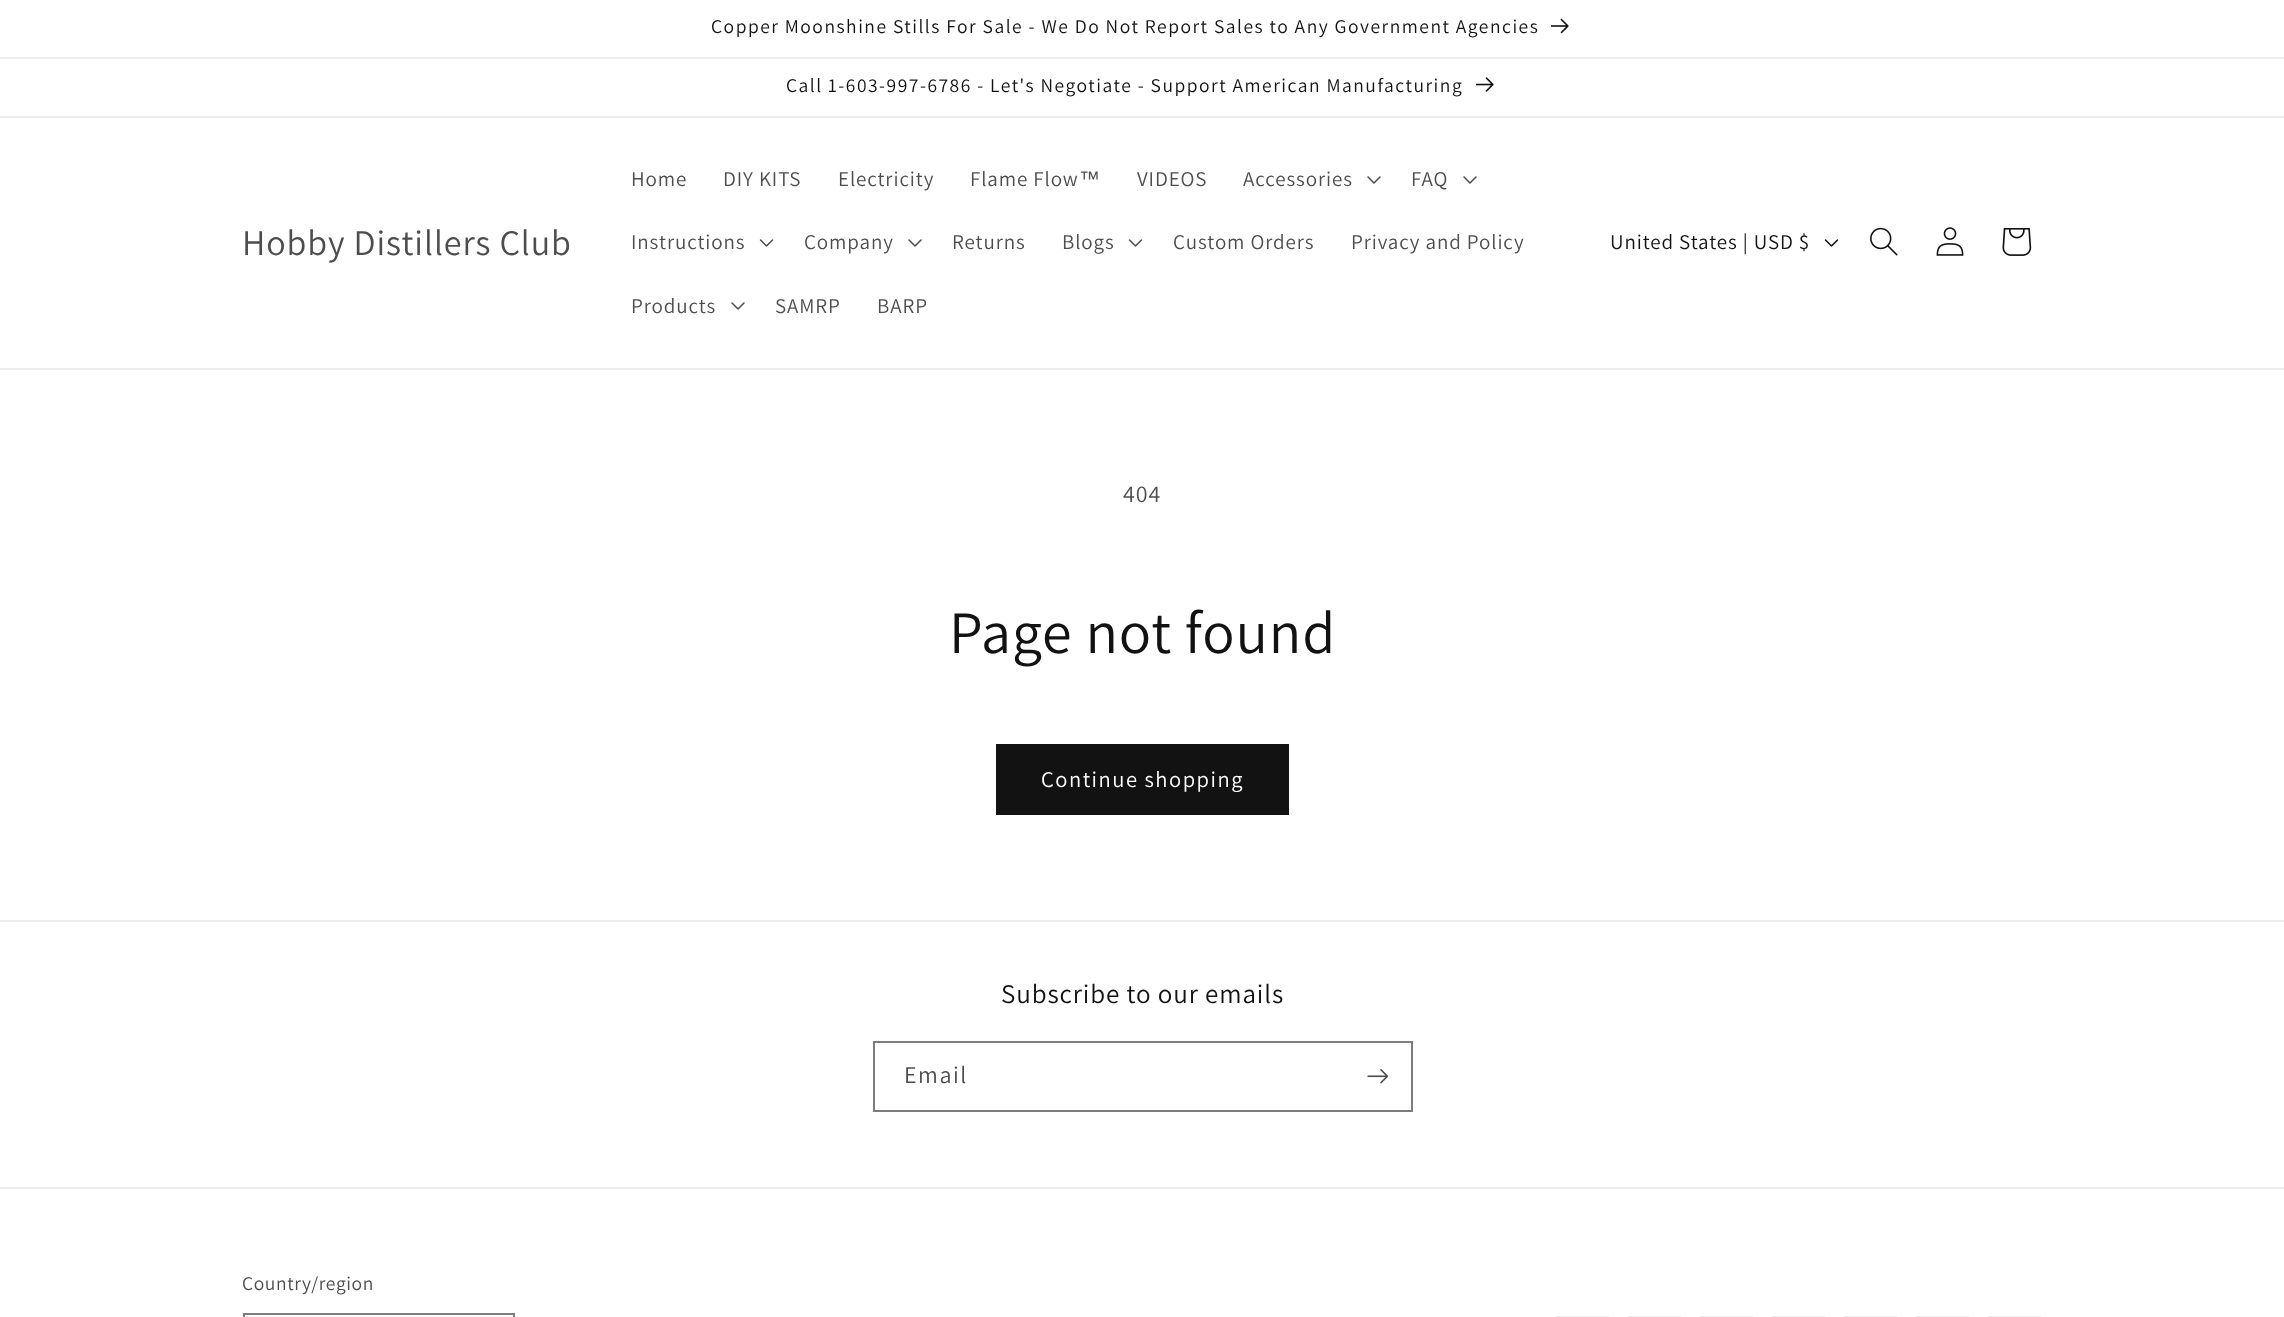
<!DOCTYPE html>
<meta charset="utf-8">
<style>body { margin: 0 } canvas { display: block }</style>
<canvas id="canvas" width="2284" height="1317"></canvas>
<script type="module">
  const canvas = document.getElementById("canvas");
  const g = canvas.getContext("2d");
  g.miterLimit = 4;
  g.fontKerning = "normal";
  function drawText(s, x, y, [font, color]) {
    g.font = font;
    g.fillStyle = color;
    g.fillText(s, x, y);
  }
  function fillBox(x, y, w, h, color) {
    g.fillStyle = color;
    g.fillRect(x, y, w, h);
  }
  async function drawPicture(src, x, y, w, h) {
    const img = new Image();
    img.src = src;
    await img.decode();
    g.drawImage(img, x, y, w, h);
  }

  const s1 = ["19.5px Assistant", "#121212"];
  const s2 = ["36px Assistant", "#4D4D4D"];
  const s3 = ["21px Assistant", "#4D4D4D"];
  const s4 = ["21px Liberation Sans", "#4D4D4D"];
  const s5 = ["21px Assistant", "#121212"];
  const s6 = ["24px Assistant", "#4D4D4D"];
  const s7 = ["60px Assistant", "#121212"];
  const s8 = ["22.5px Assistant", "#FFFFFF"];
  const s9 = ["27px Assistant", "#121212"];
  const s10 = ["19.5px Assistant", "#4D4D4D"];

  fillBox(0, 0, 2284, 1317, "#FFFFFF");
  fillBox(0, 57, 2284, 2, "#ECECEC");
  g.letterSpacing = "1.5px";
  drawText("Copper Moonshine Stills For Sale - We Do Not Report Sales to Any Government Agencies", 711, 33, s1);
  await drawPicture("pic1.png", 1551, 18, 18, 16);
  fillBox(0, 116, 2284, 2, "#ECECEC");
  drawText("Call 1-603-997-6786 - Let's Negotiate - Support American Manufacturing", 786, 92, s1);
  await drawPicture("pic2.png", 1476, 77, 18, 15);
  fillBox(0, 368, 2284, 2, "#ECECEC");
  g.letterSpacing = "0.9px";
  drawText("Hobby Distillers Club", 242, 255, s2);
  drawText("Home", 631, 186, s3);
  drawText("DIY KITS", 723, 186, s3);
  drawText("Electricity", 838, 186, s3);
  drawText("Flame Flow", 970, 186, s3);
  drawText("™", 1079, 186, s4);
  drawText("VIDEOS", 1137, 186, s3);
  drawText("Accessories", 1243, 186, s3);
  await drawPicture("pic3.png", 1367, 176, 14, 8);
  drawText("FAQ", 1411, 186, s3);
  await drawPicture("pic3.png", 1463, 176, 14, 8);
  drawText("Instructions", 631, 249, s3);
  await drawPicture("pic4.png", 759, 239, 15, 8);
  drawText("Company", 804, 249, s3);
  await drawPicture("pic3.png", 908, 239, 14, 8);
  drawText("Returns", 952, 249, s3);
  drawText("Blogs", 1062, 249, s3);
  await drawPicture("pic4.png", 1128, 239, 15, 8);
  drawText("Custom Orders", 1173, 249, s3);
  drawText("Privacy and Policy", 1351, 249, s3);
  drawText("Products", 631, 313, s3);
  await drawPicture("pic3.png", 731, 302, 14, 8);
  drawText("SAMRP", 775, 313, s3);
  drawText("BARP", 877, 313, s3);
  drawText("United States | USD $", 1610, 249, s5);
  await drawPicture("pic5.png", 1824, 239, 15, 8);
  await drawPicture("pic6.png", 1870, 227, 28, 29);
  await drawPicture("pic7.png", 1936, 227, 28, 29);
  await drawPicture("pic8.png", 2002, 228, 30, 28);
  drawText("404", 1123, 502, s6);
  drawText("Page not found", 949, 653, s7);
  fillBox(996, 744, 293, 71, "#121212");
  g.letterSpacing = "1.5px";
  drawText("Continue shopping", 1041, 787, s8);
  fillBox(0, 920, 2284, 2, "#ECECEC");
  g.letterSpacing = "0.9px";
  drawText("Subscribe to our emails", 1001, 1003, s9);
  g.strokeStyle = "#7D7D7D";
  g.lineWidth = 2;
  g.strokeRect(874, 1042, 538, 69);
  g.letterSpacing = "1.5px";
  drawText("Email", 904, 1083, s6);
  await drawPicture("pic9.png", 1367, 1069, 22, 15);
  fillBox(0, 1187, 2284, 2, "#ECECEC");
  g.letterSpacing = "0.6px";
  drawText("Country/region", 242, 1290, s10);
  g.strokeRect(244, 1314, 270, 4);
  await drawPicture("pic10.png", 1555, 1316, 55, 1);
  await drawPicture("pic10.png", 1627, 1316, 55, 1);
  await drawPicture("pic10.png", 1699, 1316, 55, 1);
  await drawPicture("pic10.png", 1771, 1316, 55, 1);
  await drawPicture("pic10.png", 1843, 1316, 55, 1);
  await drawPicture("pic10.png", 1915, 1316, 55, 1);
  await drawPicture("pic10.png", 1987, 1316, 55, 1);
</script>
